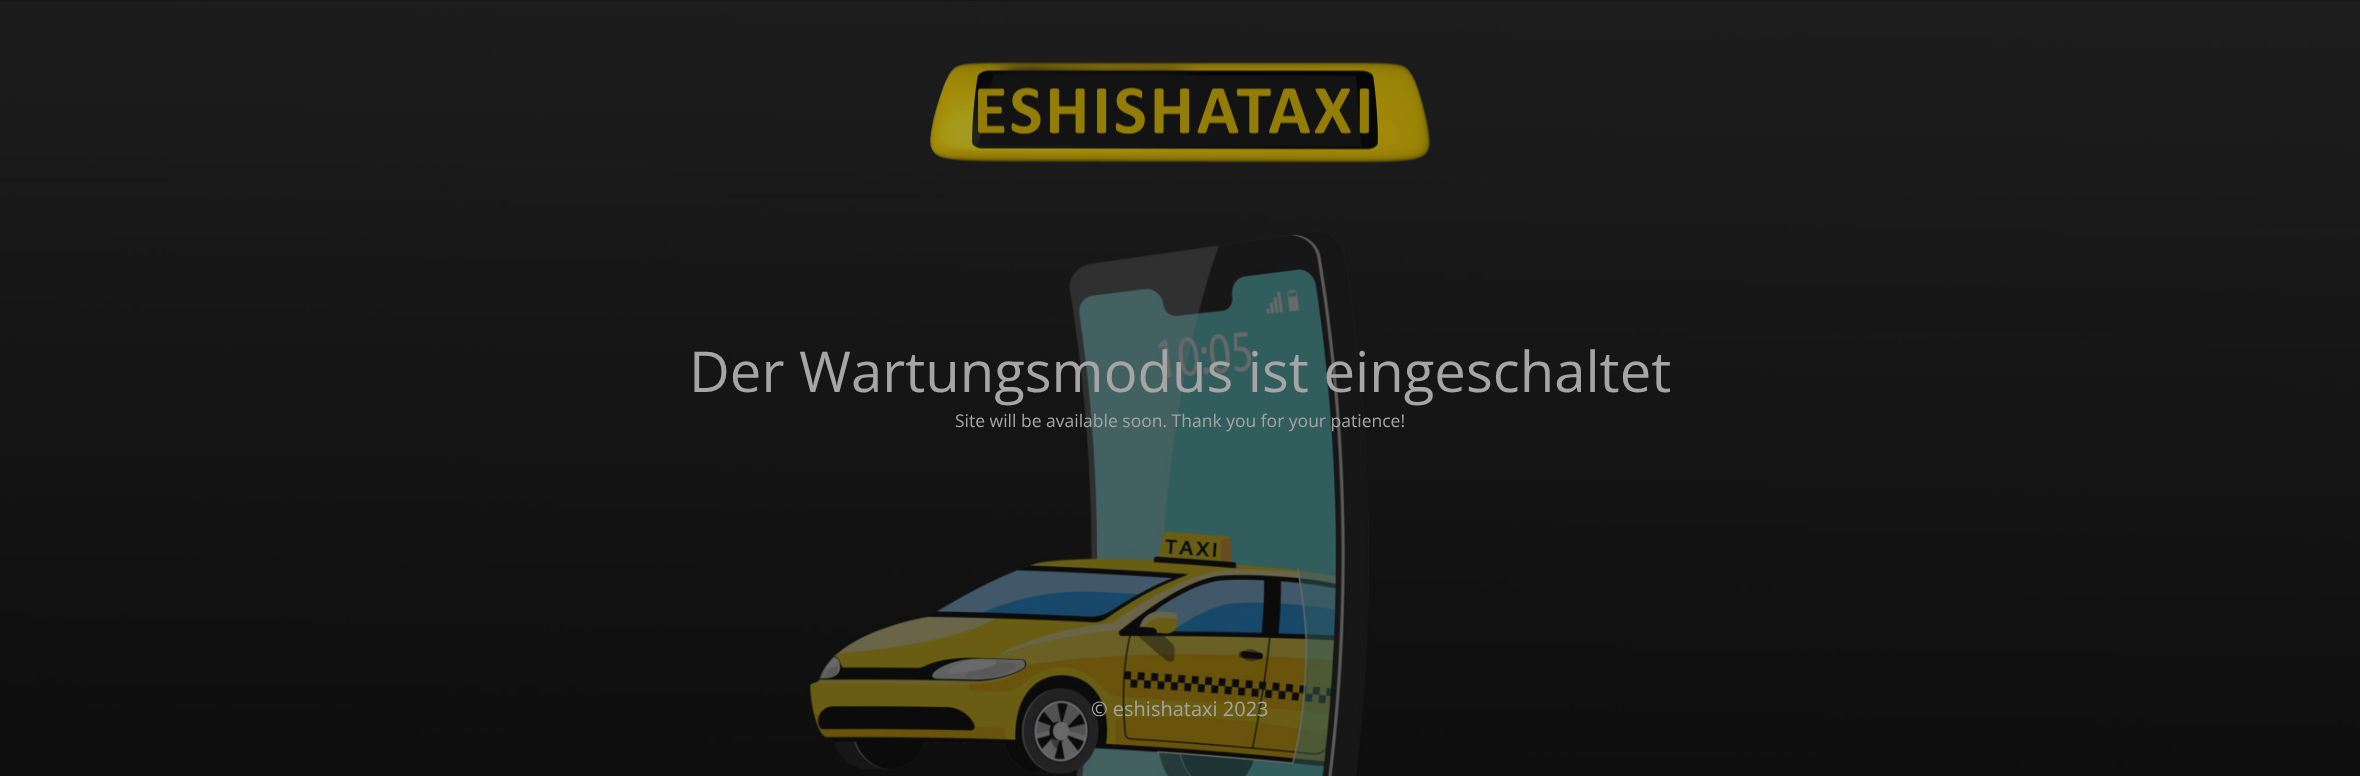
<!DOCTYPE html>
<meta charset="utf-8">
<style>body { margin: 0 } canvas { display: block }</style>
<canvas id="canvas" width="2360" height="776"></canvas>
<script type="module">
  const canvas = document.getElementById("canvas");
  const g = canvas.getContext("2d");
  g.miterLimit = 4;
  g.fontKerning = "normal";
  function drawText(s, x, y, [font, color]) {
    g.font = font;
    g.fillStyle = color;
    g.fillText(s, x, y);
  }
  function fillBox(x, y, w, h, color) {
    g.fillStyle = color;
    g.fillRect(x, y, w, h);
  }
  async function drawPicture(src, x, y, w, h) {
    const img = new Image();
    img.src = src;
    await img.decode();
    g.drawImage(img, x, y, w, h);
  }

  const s1 = ["56.25px Open Sans", "#A5A5A5"];
  const s2 = ["17.5px Open Sans", "#A5A5A5"];
  const s3 = ["20px Open Sans", "#A5A5A5"];

  fillBox(0, 0, 2360, 776, "#111111");
  await drawPicture("pic1.png", 0, 0, 2360, 776);
  await drawPicture("pic2.png", 930, 62, 500, 101);
  drawText("Der Wartungsmodus ist eingeschaltet", 689, 392, s1);
  drawText("Site will be available soon. Thank you for your patience!", 955, 427, s2);
  drawText("© eshishataxi 2023", 1091, 716, s3);
</script>
